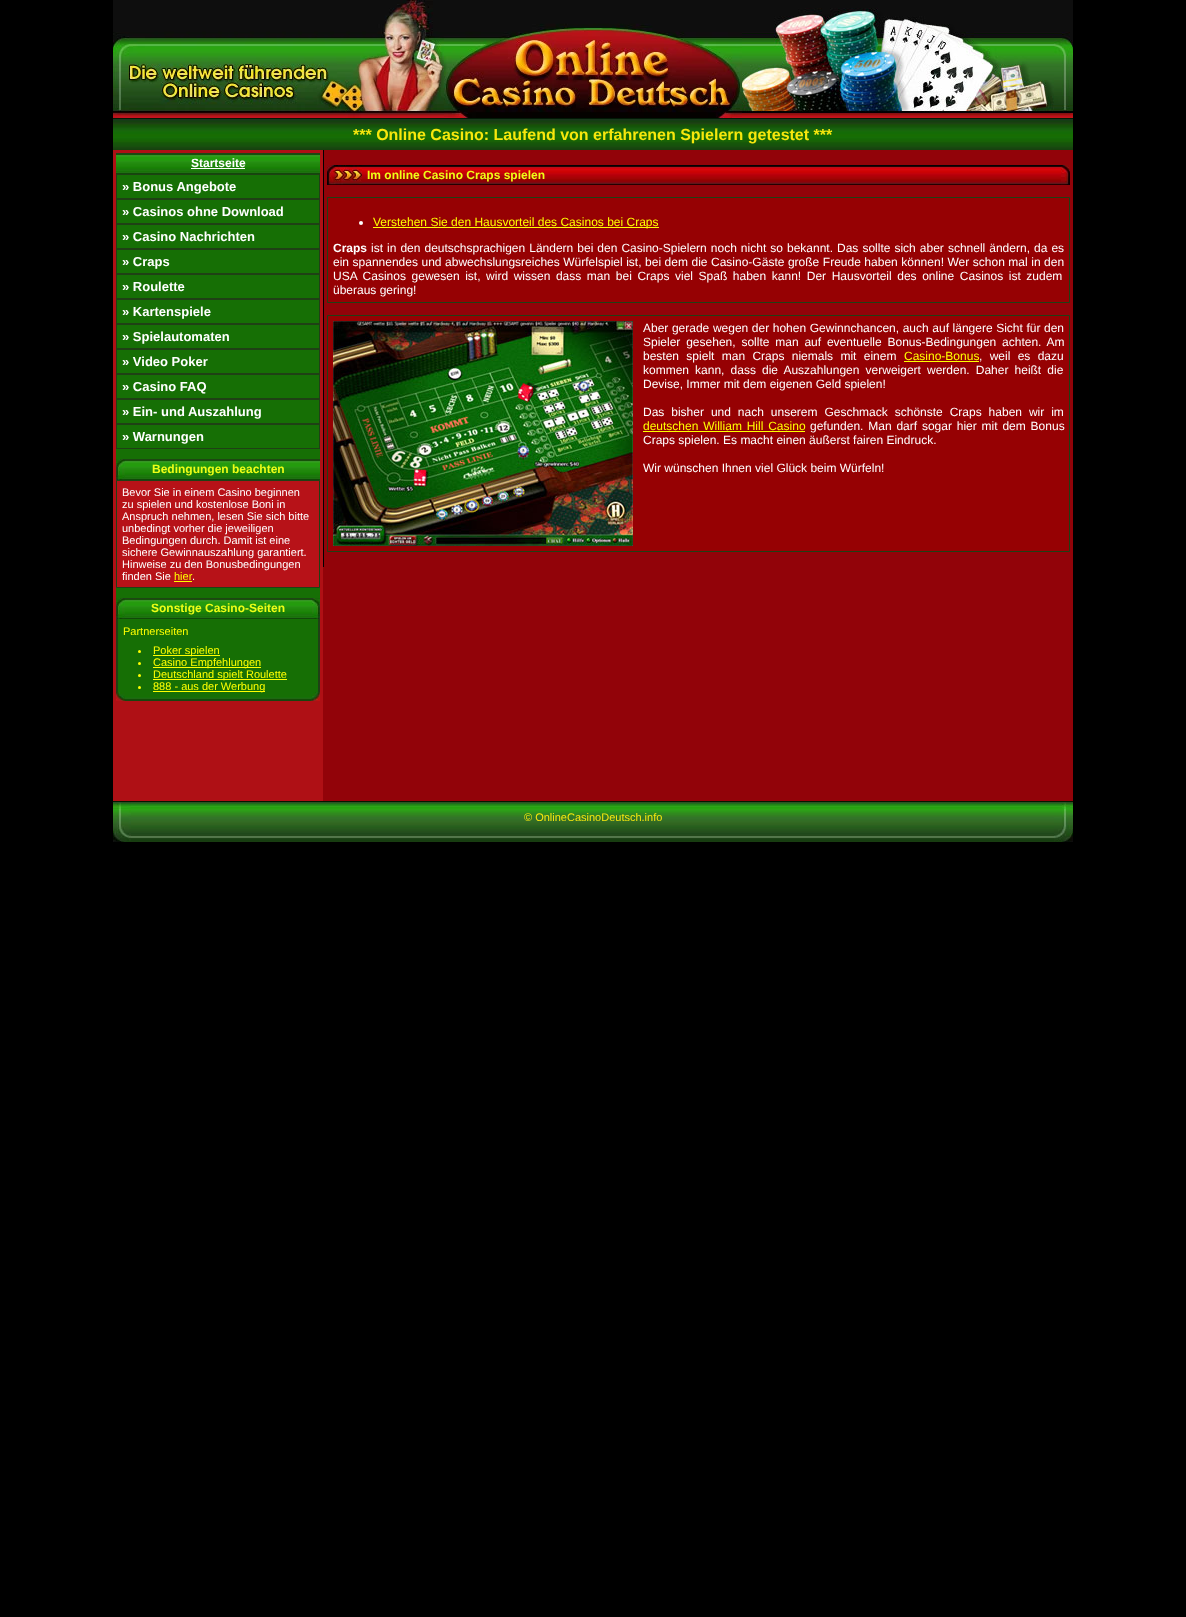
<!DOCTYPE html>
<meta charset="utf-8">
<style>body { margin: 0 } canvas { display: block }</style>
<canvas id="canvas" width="1186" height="1617"></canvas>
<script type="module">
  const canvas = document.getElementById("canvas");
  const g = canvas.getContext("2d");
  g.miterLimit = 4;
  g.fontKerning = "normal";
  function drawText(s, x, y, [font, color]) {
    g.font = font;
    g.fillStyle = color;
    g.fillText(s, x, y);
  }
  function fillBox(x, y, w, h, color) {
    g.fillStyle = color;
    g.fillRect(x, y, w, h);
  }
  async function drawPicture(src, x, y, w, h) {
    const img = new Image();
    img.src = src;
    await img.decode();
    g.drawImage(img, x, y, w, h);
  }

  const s1 = ["bold 16px Liberation Sans", "#F7E70D"];
  const s2 = ["bold 12px Liberation Sans", "#FFFFFF"];
  const s3 = ["bold 13px Liberation Sans", "#FFFFFF"];
  const s4 = ["bold 12px Liberation Sans", "#EEFE17"];
  const s5 = ["11px Liberation Sans", "#FFFFFF"];
  const s6 = ["11px Liberation Sans", "#FFFF00"];
  const s7 = ["12px Liberation Sans", "#FFFF00"];
  const s8 = ["12px Liberation Sans", "#FFFFFF"];
  const s9 = ["11px Liberation Sans", "#F7E70D"];

  fillBox(0, 0, 1186, 1617, "#000000");
  fillBox(323, 150, 750, 651, "#920309");
  await drawPicture("pic1.png", 444, 0, 298, 118);
  await drawPicture("pic2.png", 113, 0, 331, 118);
  await drawPicture("pic3.png", 742, 0, 331, 118);
  await drawPicture("pic4.png", 113, 118, 960, 32);
  drawText("*** Online Casino: Laufend von erfahrenen Spielern getestet ***", 353, 140, s1);
  fillBox(113, 150, 210, 651, "#AF1015");
  fillBox(116, 175, 204, 522, "#166F05");
  await drawPicture("pic5.png", 116, 153, 204, 21);
  drawText("Startseite", 191, 167, s2);
  fillBox(191, 168, 54, 1, "#FFFFFF");
  g.strokeStyle = "#1F4015";
  g.strokeRect(116.5, 174.5, 203, 24);
  drawText("» Bonus Angebote", 122, 191, s3);
  g.strokeRect(116.5, 199.5, 203, 24);
  drawText("» Casinos ohne Download", 122, 216, s3);
  g.strokeRect(116.5, 224.5, 203, 24);
  drawText("» Casino Nachrichten", 122, 241, s3);
  g.strokeRect(116.5, 249.5, 203, 24);
  drawText("» Craps", 122, 266, s3);
  g.strokeRect(116.5, 274.5, 203, 24);
  drawText("» Roulette", 122, 291, s3);
  g.strokeRect(116.5, 299.5, 203, 24);
  drawText("» Kartenspiele", 122, 316, s3);
  g.strokeRect(116.5, 324.5, 203, 24);
  drawText("» Spielautomaten", 122, 341, s3);
  g.strokeRect(116.5, 349.5, 203, 24);
  drawText("» Video Poker", 122, 366, s3);
  g.strokeRect(116.5, 374.5, 203, 24);
  drawText("» Casino FAQ", 122, 391, s3);
  g.strokeRect(116.5, 399.5, 203, 24);
  drawText("» Ein- und Auszahlung", 122, 416, s3);
  g.strokeRect(116.5, 424.5, 203, 24);
  drawText("» Warnungen", 122, 441, s3);
  await drawPicture("pic6.png", 125, 459, 195, 21);
  await drawPicture("pic7.png", 116, 459, 9, 21);
  drawText("Bedingungen beachten", 152, 473, s4);
  g.fillStyle = "#B71218";
  g.beginPath();
  g.rect(116.5, 480.5, 203, 107);
  g.fill();
  g.stroke();
  drawText("Bevor Sie in einem Casino beginnen", 122, 496, s5);
  drawText("zu spielen und kostenlose Boni in", 122, 508, s5);
  drawText("Anspruch nehmen, lesen Sie sich bitte", 122, 520, s5);
  drawText("unbedingt vorher die jeweiligen", 122, 532, s5);
  drawText("Bedingungen durch. Damit ist eine", 122, 544, s5);
  drawText("sichere Gewinnauszahlung garantiert.", 122, 556, s5);
  drawText("Hinweise zu den Bonusbedingungen", 122, 568, s5);
  drawText("finden Sie", 122, 580, s5);
  drawText("hier", 174, 580, s6);
  fillBox(174, 581, 18, 1, "#FFFF00");
  drawText(".", 192, 580, s5);
  await drawPicture("pic8.png", 125, 598, 187, 21);
  await drawPicture("pic7.png", 116, 598, 9, 21);
  await drawPicture("pic9.png", 312, 598, 8, 21);
  drawText("Sonstige Casino-Seiten", 151, 612, s4);
  fillBox(318, 619, 2, 73, "#1F4015");
  fillBox(116, 619, 2, 73, "#1F4015");
  drawText("Partnerseiten", 123, 635, s6);
  g.beginPath();
  g.arc(139.5, 651.5, 1.5, 0, Math.PI * 2);
  g.fill();
  fillBox(153, 655, 67, 1, "#FFFF00");
  drawText("Poker spielen", 153, 654, s6);
  g.beginPath();
  g.arc(139.5, 663.5, 1.5, 0, Math.PI * 2);
  g.fill();
  fillBox(153, 667, 108, 1, "#FFFF00");
  drawText("Casino Empfehlungen", 153, 666, s6);
  g.beginPath();
  g.arc(139.5, 675.5, 1.5, 0, Math.PI * 2);
  g.fill();
  fillBox(153, 679, 134, 1, "#FFFF00");
  drawText("Deutschland spielt Roulette", 153, 678, s6);
  g.beginPath();
  g.arc(139.5, 687.5, 1.5, 0, Math.PI * 2);
  g.fill();
  fillBox(153, 691, 112, 1, "#FFFF00");
  drawText("888 - aus der Werbung", 153, 690, s6);
  await drawPicture("pic10.png", 125, 697, 186, 4);
  await drawPicture("pic11.png", 116, 692, 9, 9);
  await drawPicture("pic12.png", 311, 692, 9, 9);
  fillBox(323, 150, 1, 417, "#000000");
  await drawPicture("pic13.png", 362, 165, 699, 20);
  await drawPicture("pic14.png", 327, 165, 35, 20);
  await drawPicture("pic15.png", 1061, 165, 9, 20);
  drawText("Im online Casino Craps spielen", 367, 179, s4);
  g.fillStyle = "#960103";
  g.beginPath();
  g.rect(327.5, 197.5, 742, 105);
  g.fill();
  g.stroke();
  g.fillStyle = "#FFFFFF";
  g.beginPath();
  g.arc(361, 223, 2, 0, Math.PI * 2);
  g.fill();
  fillBox(373, 227, 286, 1, "#FFFF00");
  drawText("Verstehen Sie den Hausvorteil des Casinos bei Craps", 373, 226, s7);
  drawText("Craps", 333, 252, s2);
  g.wordSpacing = "0.7px";
  drawText("ist in den deutschsprachigen Ländern bei den Casino-Spielern noch nicht so bekannt. Das sollte sich aber schnell ändern, da es", 371, 252, s8);
  g.wordSpacing = "0.2px";
  drawText("ein spannendes und abwechslungsreiches Würfelspiel ist, bei dem die Casino-Gäste große Freude haben können! Wer schon mal in den", 333, 266, s8);
  g.wordSpacing = "2.25px";
  drawText("USA Casinos gewesen ist, wird wissen dass man bei Craps viel Spaß haben kann! Der Hausvorteil des online Casinos ist zudem", 333, 280, s8);
  g.wordSpacing = "0px";
  drawText("überaus gering!", 333, 294, s8);
  g.fillStyle = "#960103";
  g.beginPath();
  g.rect(327.5, 315.5, 742, 236);
  g.fill();
  g.stroke();
  await drawPicture("pic16.png", 333, 321, 300, 225);
  g.wordSpacing = "0.25px";
  drawText("Aber gerade wegen der hohen Gewinnchancen, auch auf längere Sicht für den", 643, 332, s8);
  g.wordSpacing = "2.5px";
  drawText("Spieler gesehen, sollte man auf eventuelle Bonus-Bedingungen achten. Am", 643, 346, s8);
  g.wordSpacing = "4px";
  drawText("besten spielt man Craps niemals mit einem", 643, 360, s8);
  g.wordSpacing = "0px";
  drawText("Casino-Bonus", 904, 360, s7);
  fillBox(904, 361, 75, 1, "#FFFF00");
  g.wordSpacing = "4px";
  drawText(", weil es dazu", 979, 360, s8);
  g.wordSpacing = "2.75px";
  drawText("kommen kann, dass die Auszahlungen verweigert werden. Daher heißt die", 643, 374, s8);
  g.wordSpacing = "0px";
  drawText("Devise, Immer mit dem eigenen Geld spielen!", 643, 388, s8);
  g.wordSpacing = "3.6px";
  drawText("Das bisher und nach unserem Geschmack schönste Craps haben wir im", 643, 416, s8);
  g.wordSpacing = "1.5px";
  drawText("deutschen William Hill Casino", 643, 430, s7);
  fillBox(643, 431, 162, 1, "#FFFF00");
  drawText("gefunden. Man darf sogar hier mit dem Bonus", 810, 430, s8);
  g.wordSpacing = "0px";
  drawText("Craps spielen. Es macht einen äußerst fairen Eindruck.", 643, 444, s8);
  drawText("Wir wünschen Ihnen viel Glück beim Würfeln!", 643, 472, s8);
  await drawPicture("pic17.png", 113, 801, 960, 41);
  await drawPicture("pic18.png", 113, 802, 18, 40);
  await drawPicture("pic19.png", 1054, 802, 19, 40);
  drawText("© OnlineCasinoDeutsch.info", 524, 821, s9);
</script>
